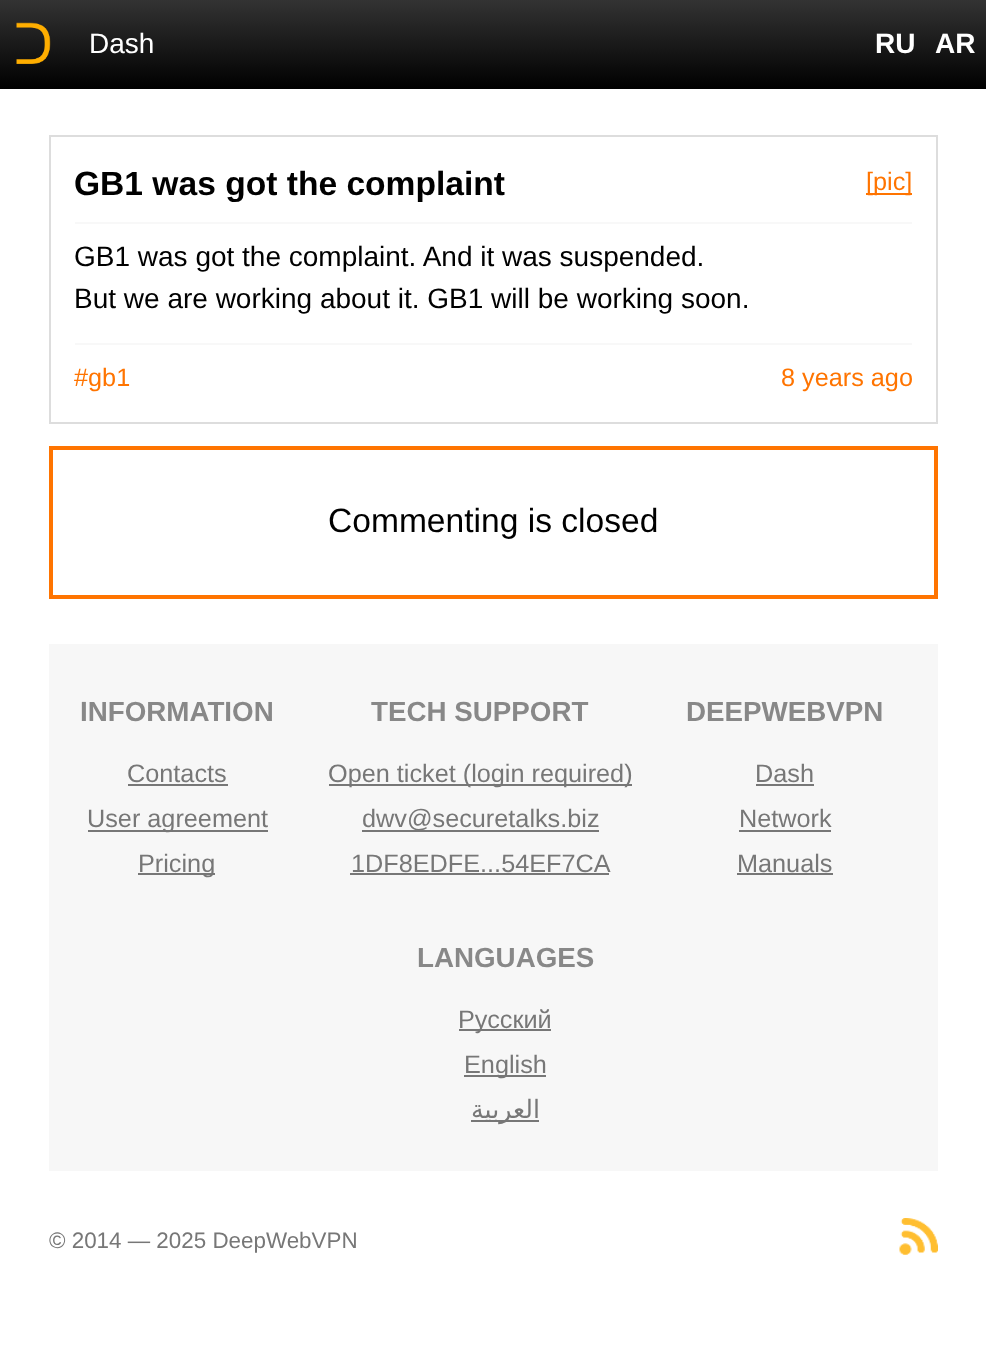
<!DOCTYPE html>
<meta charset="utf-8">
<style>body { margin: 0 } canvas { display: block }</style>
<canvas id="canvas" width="986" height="1366"></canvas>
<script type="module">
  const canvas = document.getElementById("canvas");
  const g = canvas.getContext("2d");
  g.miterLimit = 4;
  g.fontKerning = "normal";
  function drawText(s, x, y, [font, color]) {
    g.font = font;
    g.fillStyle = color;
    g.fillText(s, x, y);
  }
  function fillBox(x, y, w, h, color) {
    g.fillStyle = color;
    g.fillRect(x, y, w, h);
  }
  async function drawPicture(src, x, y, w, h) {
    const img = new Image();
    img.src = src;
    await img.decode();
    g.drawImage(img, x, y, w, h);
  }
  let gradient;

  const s1 = ["28px Liberation Sans", "#FFFFFF"];
  const s2 = ["bold 28px Liberation Sans", "#FFFFFF"];
  const s3 = ["bold 33.6px Liberation Sans", "#000000"];
  const s4 = ["25.25px Liberation Sans", "#FF7400"];
  const s5 = ["28px Liberation Sans", "#000000"];
  const s6 = ["33.6px Liberation Sans", "#000000"];
  const s7 = ["bold 27.75px Liberation Sans", "#888888"];
  const s8 = ["25.25px Liberation Sans", "#777777"];
  const s9 = ["25.25px DejaVu Sans", "#777777"];
  const s10 = ["22.4px Liberation Sans", "#777777"];

  fillBox(0, 0, 986, 1366, "#FFFFFF");
  gradient = g.createLinearGradient(494, 89, 494, 0);
  gradient.addColorStop(0, "#000000");
  gradient.addColorStop(1, "#333333");
  g.fillStyle = gradient;
  g.fillRect(0, 0, 986, 89);
  await drawPicture("pic1.png", 16, 22, 35, 42);
  drawText("Dash", 89, 53, s1);
  drawText("RU", 875, 53, s2);
  drawText("AR", 935, 53, s2);
  g.strokeStyle = "#DDDDDD";
  g.lineWidth = 2;
  g.strokeRect(50, 136, 887, 287);
  fillBox(75, 222, 837, 2, "#F8F8F8");
  drawText("GB1 was got the complaint", 74, 195, s3);
  fillBox(866, 193, 46, 2, "#FF7400");
  drawText("[pic]", 866, 190, s4);
  drawText("GB1 was got the complaint. And it was suspended.", 74, 266, s5);
  drawText("But we are working about it. GB1 will be working soon.", 74, 308, s5);
  fillBox(75, 343, 837, 2, "#F8F8F8");
  drawText("#gb1", 74, 386, s4);
  drawText("8 years ago", 781, 386, s4);
  g.strokeStyle = "#FF7400";
  g.lineWidth = 4;
  g.strokeRect(51, 448, 885, 149);
  drawText("Commenting is closed", 328, 532, s6);
  fillBox(49, 644, 889, 527, "#F7F7F7");
  drawText("INFORMATION", 80, 721, s7);
  drawText("Contacts", 127, 782, s8);
  fillBox(128, 784, 100, 2, "#777777");
  fillBox(88, 830, 180, 2, "#777777");
  drawText("User agreement", 87, 827, s8);
  fillBox(138, 873, 77, 2, "#777777");
  drawText("Pricing", 138, 872, s8);
  drawText("TECH SUPPORT", 371, 721, s7);
  fillBox(329, 784, 303, 2, "#777777");
  drawText("Open ticket (login required)", 328, 782, s8);
  fillBox(362, 830, 237, 2, "#777777");
  drawText("dwv@securetalks.biz", 362, 827, s8);
  drawText("1DF8EDFE...54EF7CA", 351, 872, s8);
  fillBox(350, 873, 259, 2, "#777777");
  drawText("DEEPWEBVPN", 686, 721, s7);
  drawText("Dash", 755, 782, s8);
  fillBox(756, 784, 58, 2, "#777777");
  drawText("Network", 739, 827, s8);
  fillBox(739, 830, 92, 2, "#777777");
  drawText("Manuals", 737, 872, s8);
  fillBox(737, 873, 96, 2, "#777777");
  drawText("LANGUAGES", 417, 967, s7);
  fillBox(459, 1029, 92, 2, "#777777");
  drawText("Русский", 458, 1028, s8);
  fillBox(464, 1075, 82, 2, "#777777");
  drawText("English", 464, 1073, s8);
  fillBox(471, 1120, 68, 2, "#777777");
  g.direction = "rtl";
  drawText("العربية", 540, 1118, s9);
  g.direction = "ltr";
  drawText("© 2014 — 2025 DeepWebVPN", 49, 1248, s10);
  await drawPicture("pic2.png", 899, 1218, 39, 37);
</script>
